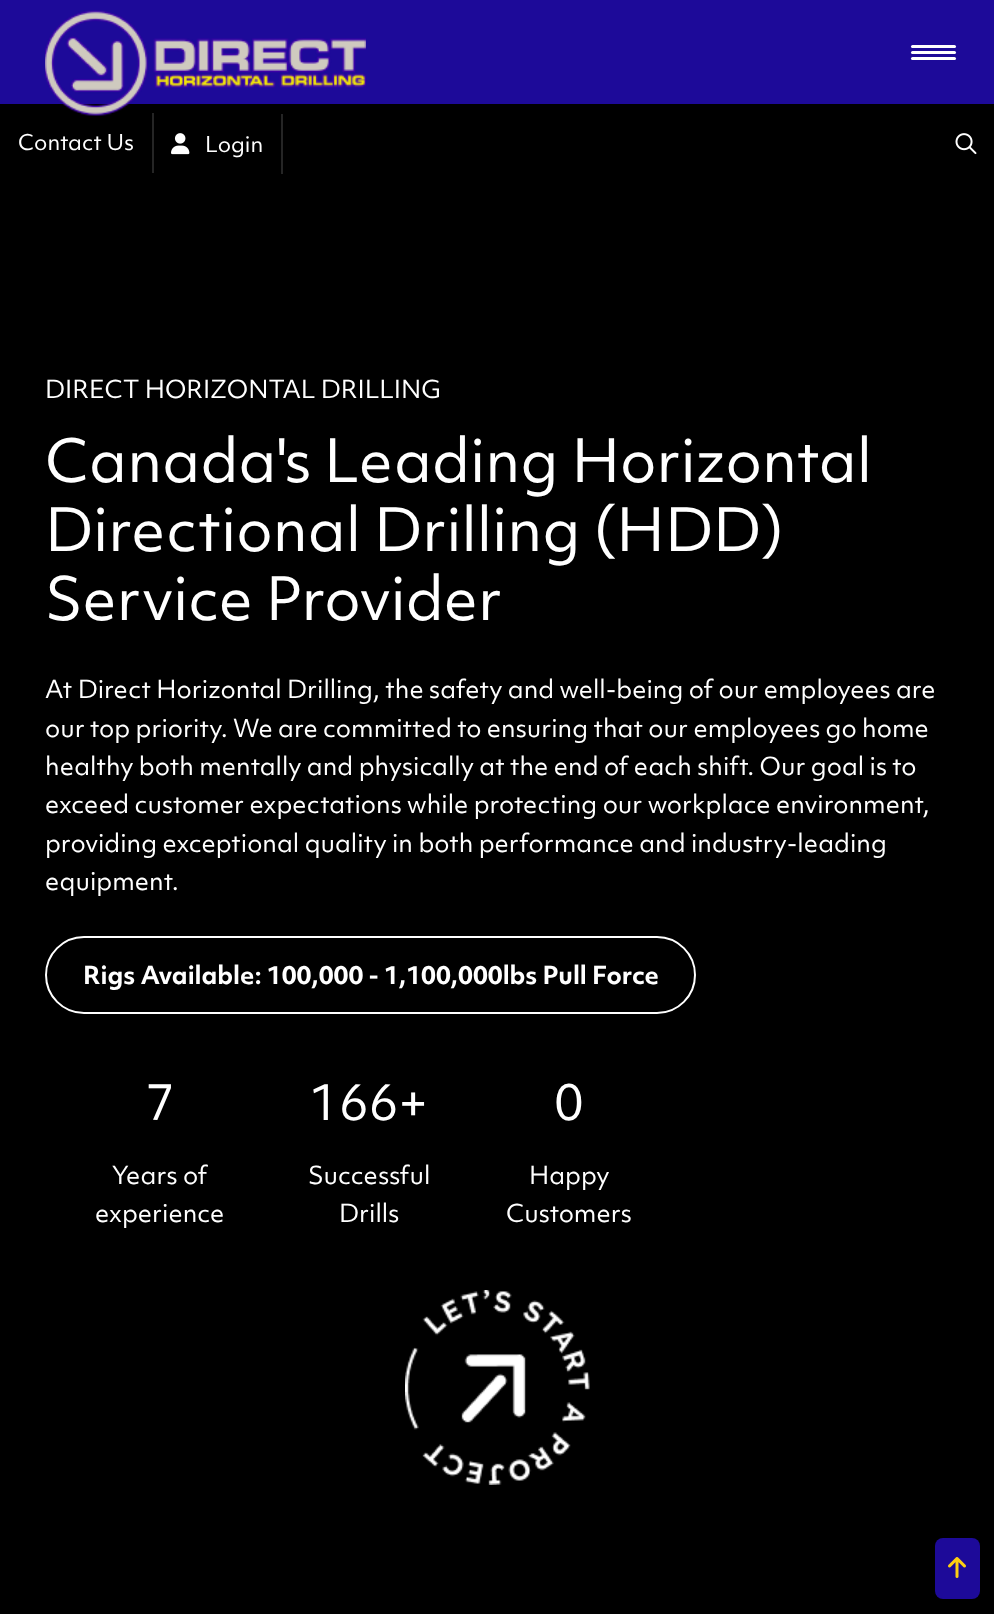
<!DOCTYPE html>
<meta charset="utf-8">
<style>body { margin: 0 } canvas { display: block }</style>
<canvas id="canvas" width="994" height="1614"></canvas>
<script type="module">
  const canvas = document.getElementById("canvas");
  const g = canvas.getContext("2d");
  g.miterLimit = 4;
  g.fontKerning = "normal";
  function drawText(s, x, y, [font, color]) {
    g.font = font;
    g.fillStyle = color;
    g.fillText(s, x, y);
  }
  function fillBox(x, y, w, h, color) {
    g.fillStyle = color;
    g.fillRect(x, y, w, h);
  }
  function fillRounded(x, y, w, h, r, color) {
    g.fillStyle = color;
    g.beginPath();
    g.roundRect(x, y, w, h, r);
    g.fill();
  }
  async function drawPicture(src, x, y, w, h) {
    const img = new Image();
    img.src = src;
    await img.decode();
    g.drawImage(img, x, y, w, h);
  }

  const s1 = ["21px 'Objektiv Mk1'", "#FFFFFF"];
  const s2 = ["24px 'Objektiv Mk1'", "#FFFFFF"];
  const s3 = ["57.6px 'Objektiv Mk1'", "#FFFFFF"];
  const s4 = ["bold 24px 'Objektiv Mk1'", "#FFFFFF"];
  const s5 = ["48px 'Objektiv Mk1'", "#FFFFFF"];

  fillBox(0, 0, 994, 1614, "#000000");
  fillBox(0, 0, 994, 104, "#1D0A99");
  fillBox(152, 113, 2, 60, "#252525");
  fillBox(281, 114, 2, 60, "#252525");
  await drawPicture("pic1.png", 45, 10, 321, 106);
  fillRounded(911, 45, 45, 3, 1.5, "#FFFFFF");
  fillRounded(911, 51, 45, 3, 1.5, "#FFFFFF");
  fillRounded(911, 57, 45, 3, 1.5, "#FFFFFF");
  drawText("Contact Us", 18, 150, s1);
  await drawPicture("pic2.png", 171, 133, 19, 22);
  drawText("Login", 205, 152, s1);
  await drawPicture("pic3.png", 955, 133, 22, 22);
  drawText("DIRECT HORIZONTAL DRILLING", 45, 398, s2);
  drawText("Canada's Leading Horizontal", 45, 482, s3);
  drawText("Directional Drilling (HDD)", 45, 551, s3);
  drawText("Service Provider", 45, 620, s3);
  drawText("At Direct Horizontal Drilling, the safety and well-being of our employees are", 45, 698, s2);
  drawText("our top priority. We are committed to ensuring that our employees go home", 45, 737, s2);
  drawText("healthy both mentally and physically at the end of each shift. Our goal is to", 45, 775, s2);
  drawText("exceed customer expectations while protecting our workplace environment,", 45, 813, s2);
  drawText("providing exceptional quality in both performance and industry-leading", 45, 852, s2);
  drawText("equipment.", 45, 890, s2);
  g.beginPath();
  g.roundRect(46, 937, 649, 76, 38);
  g.strokeStyle = "#FFFFFF";
  g.lineWidth = 2;
  g.stroke();
  drawText("Rigs Available: 100,000 - 1,100,000lbs Pull Force", 83, 984, s4);
  drawText("7", 145, 1120, s5);
  drawText("Years of", 112, 1184, s2);
  drawText("experience", 95, 1222, s2);
  drawText("166+", 309, 1120, s5);
  drawText("Successful", 308, 1184, s2);
  drawText("Drills", 339, 1222, s2);
  drawText("0", 554, 1120, s5);
  drawText("Happy", 529, 1184, s2);
  drawText("Customers", 506, 1222, s2);
  await drawPicture("pic4.png", 405, 1290, 185, 195);
  fillRounded(935, 1538, 45, 61, 8, "#1D0A99");
  await drawPicture("pic5.png", 948, 1557, 18, 21);
</script>
